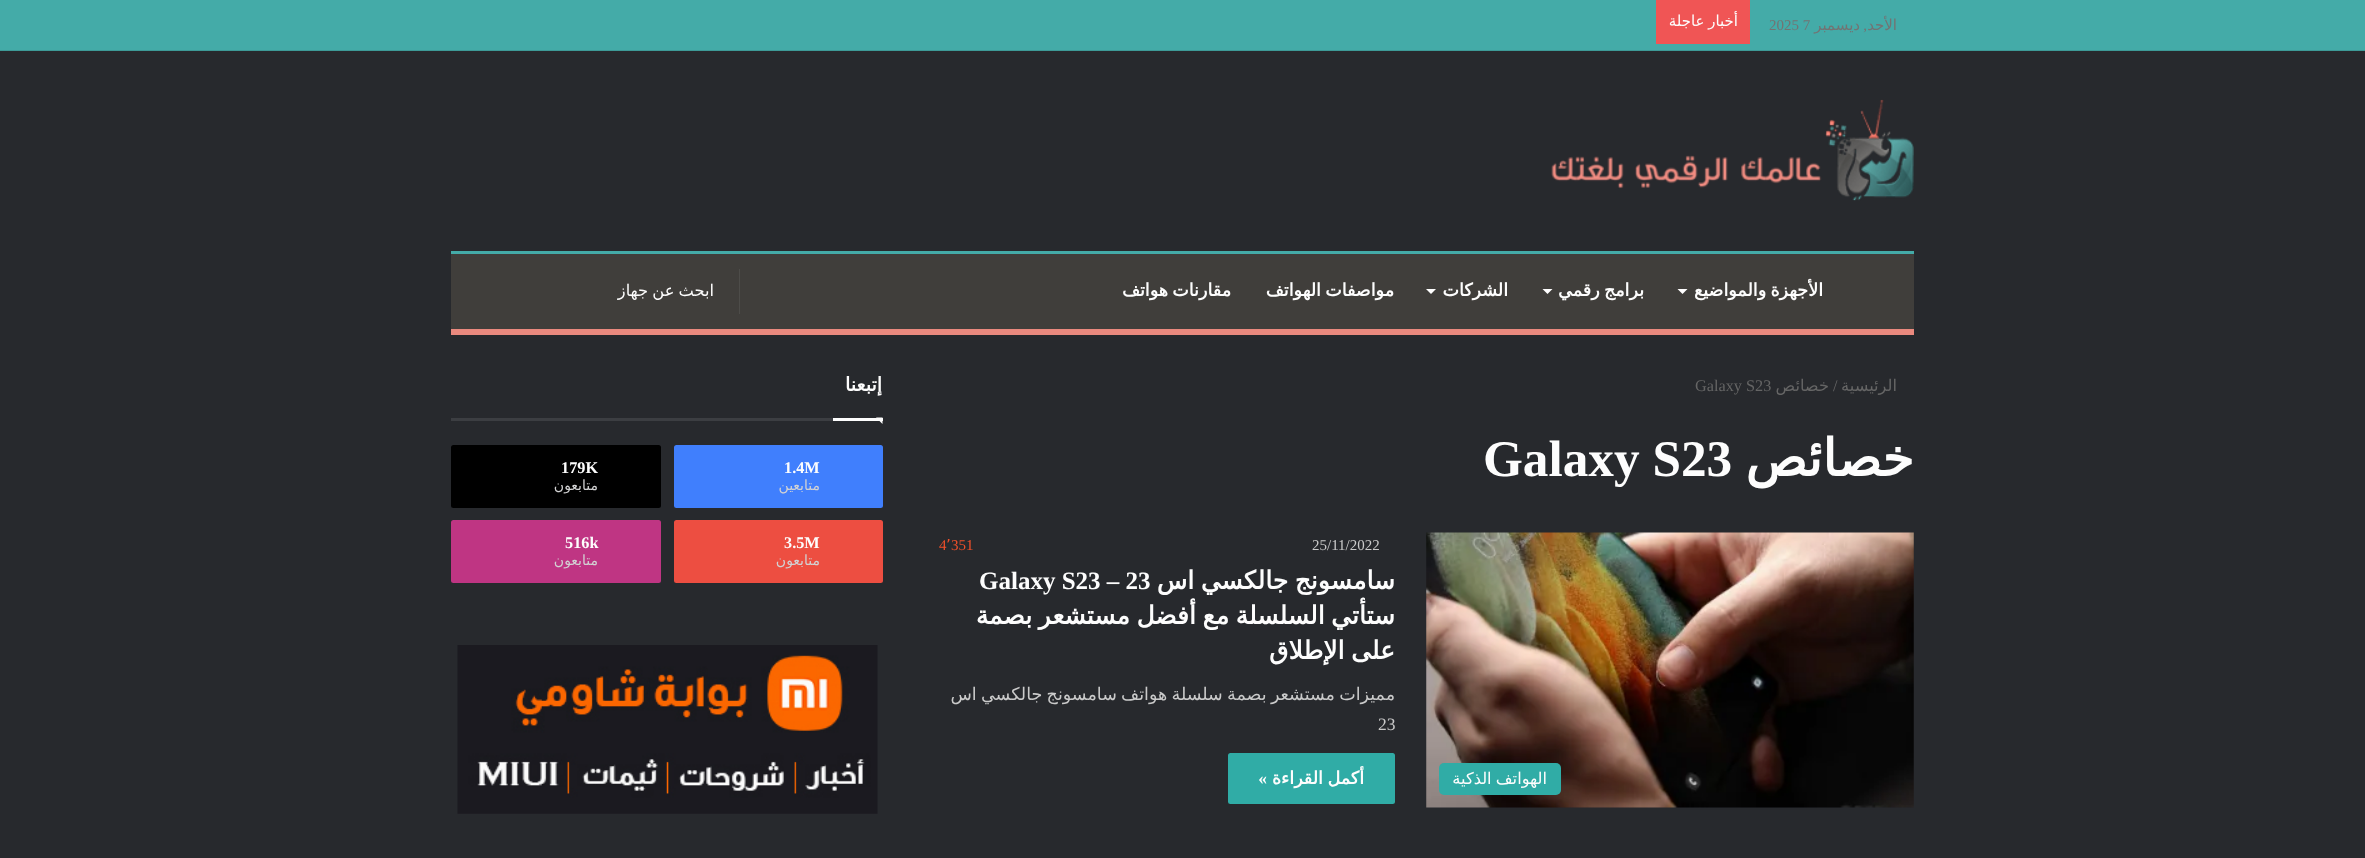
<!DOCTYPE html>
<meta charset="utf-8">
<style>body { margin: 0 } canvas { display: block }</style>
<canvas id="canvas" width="2365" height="858"></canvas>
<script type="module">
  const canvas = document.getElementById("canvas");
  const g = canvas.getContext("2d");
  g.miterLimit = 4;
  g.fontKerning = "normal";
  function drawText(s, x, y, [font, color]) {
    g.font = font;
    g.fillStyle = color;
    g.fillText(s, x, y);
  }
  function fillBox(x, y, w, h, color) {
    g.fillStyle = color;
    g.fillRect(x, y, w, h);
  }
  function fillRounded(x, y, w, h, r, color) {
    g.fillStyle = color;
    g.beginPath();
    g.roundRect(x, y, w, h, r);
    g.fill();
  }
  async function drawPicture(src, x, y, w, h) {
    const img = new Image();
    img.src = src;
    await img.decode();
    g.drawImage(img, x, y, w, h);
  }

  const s1 = ["15px DejaVu Sans", "#737373"];
  const s2 = ["15px Liberation Serif", "#737373"];
  const s3 = ["15px DejaVu Sans", "#FDFDFD"];
  const s4 = ["bold 17.5px DejaVu Sans", "#FDFDFD"];
  const s5 = ["16.25px DejaVu Sans", "#FDFDFD"];
  const s6 = ["16.25px DejaVu Sans", "#656565"];
  const s7 = ["16.25px Liberation Serif", "#656565"];
  const s8 = ["bold 51.25px DejaVu Sans", "#FDFDFD"];
  const s9 = ["bold 51.25px Liberation Serif", "#FDFDFD"];
  const s10 = ["15px Liberation Serif", "#CACACA"];
  const s11 = ["15px Liberation Serif", "#F1502A"];
  const s12 = ["15px DejaVu Sans", "#F1502A"];
  const s13 = ["bold 25px DejaVu Sans", "#FDFDFD"];
  const s14 = ["bold 25px Liberation Serif", "#FDFDFD"];
  const s15 = ["17.5px DejaVu Sans", "#CACACA"];
  const s16 = ["17.5px Liberation Serif", "#CACACA"];
  const s17 = ["bold 17.5px Liberation Serif", "#FDFDFD"];
  const s18 = ["bold 19px DejaVu Sans", "#FDFDFD"];
  const s19 = ["bold 16.25px Liberation Serif", "#FDFDFD"];
  const s20 = ["14px DejaVu Sans", "#D2D2D3"];

  fillBox(0, 0, 2365, 858, "#27292D");
  fillBox(0, 0, 2365, 50, "#44ABA8");
  fillBox(0, 50, 2365, 1, "#3D9A97");
  g.direction = "rtl";
  drawText("الأحد", 1897, 30, s1);
  drawText(",", 1867, 30, s2);
  drawText("ديسمبر", 1860, 30, s1);
  g.direction = "ltr";
  drawText("2025 7", 1769, 30, s2);
  fillBox(1656, 0, 94, 44, "#F05555");
  g.wordSpacing = "-1px";
  g.direction = "rtl";
  drawText("أخبار عاجلة", 1738, 26, s3);
  await drawPicture("pic1.png", 1551, 99, 363, 102);
  fillBox(451, 254, 1463, 75, "#403E3B");
  fillBox(451, 251, 1463, 3, "#44ABA8");
  fillBox(451, 329, 1463, 6, "#EA897E");
  g.wordSpacing = "-1.25px";
  drawText("الأجهزة والمواضيع", 1823, 296, s4);
  g.fillStyle = "#FFFFFF";
  g.beginPath();
  g.moveTo(1677.5, 289);
  g.lineTo(1687.5, 289);
  g.lineTo(1682.5, 294);
  g.closePath();
  g.fill();
  drawText("برامج رقمي", 1644, 296, s4);
  g.fillStyle = "#FFFFFF";
  g.beginPath();
  g.moveTo(1542.5, 289);
  g.lineTo(1552.5, 289);
  g.lineTo(1547.5, 294);
  g.closePath();
  g.fill();
  g.wordSpacing = "0px";
  drawText("الشركات", 1508, 296, s4);
  g.fillStyle = "#FFFFFF";
  g.beginPath();
  g.moveTo(1426, 289);
  g.lineTo(1436, 289);
  g.lineTo(1431, 294);
  g.closePath();
  g.fill();
  g.wordSpacing = "-1.25px";
  drawText("مواصفات الهواتف", 1394, 296, s4);
  drawText("مقارنات هواتف", 1231, 296, s4);
  fillBox(739, 269, 1, 45, "#4D4C49");
  g.save();
  g.beginPath();
  g.rect(514, 281, 200, 20);
  g.clip();
  g.wordSpacing = "-1px";
  drawText("ابحث عن جهاز", 714, 296, s5);
  g.restore();
  g.wordSpacing = "0px";
  drawText("الرئيسية", 1897, 391, s6);
  g.direction = "ltr";
  drawText("/", 1833, 391, s7);
  g.direction = "rtl";
  drawText("خصائص", 1829, 391, s6);
  g.direction = "ltr";
  drawText("Galaxy S23", 1695, 391, s7);
  g.direction = "rtl";
  drawText("خصائص", 1914, 476, s8);
  g.direction = "ltr";
  drawText("Galaxy S23", 1483, 476, s9);
  await drawPicture("pic2.png", 1426, 532, 488, 276);
  fillRounded(1439, 763, 122, 32, 5, "#30ACA6");
  g.wordSpacing = "-1px";
  g.direction = "rtl";
  drawText("الهواتف الذكية", 1547, 784, s5);
  g.wordSpacing = "0px";
  g.direction = "ltr";
  drawText("25/11/2022", 1312, 550, s10);
  drawText("351", 951, 550, s11);
  drawText("٬", 946, 550, s12);
  drawText("4", 939, 550, s11);
  g.wordSpacing = "-1.5px";
  g.direction = "rtl";
  drawText("سامسونج جالكسي اس", 1395, 589, s13);
  g.wordSpacing = "0px";
  g.direction = "ltr";
  drawText("Galaxy S23 – 23", 979, 589, s14);
  g.wordSpacing = "-1.5px";
  g.direction = "rtl";
  drawText("ستأتي السلسلة مع أفضل مستشعر بصمة", 1395, 624, s13);
  drawText("على الإطلاق", 1395, 659, s13);
  g.wordSpacing = "-1.25px";
  drawText("مميزات مستشعر بصمة سلسلة هواتف سامسونج جالكسي اس", 1395, 700, s15);
  g.wordSpacing = "0px";
  g.direction = "ltr";
  drawText("23", 1378, 730, s16);
  fillRounded(1228, 753, 167, 51, 2.5, "#30ACA6");
  g.wordSpacing = "-1px";
  g.direction = "rtl";
  drawText("أكمل القراءة", 1364, 784, s4);
  g.wordSpacing = "0px";
  drawText("»", 1267, 784, s17);
  fillBox(451, 418, 382, 3, "#3C3E42");
  drawText("إتبعنا", 882, 391, s18);
  g.beginPath();
  g.moveTo(876, 417.5);
  g.lineTo(882.5, 417.5);
  g.lineTo(882.5, 424);
  g.closePath();
  g.fill();
  fillBox(833, 418, 50, 3, "#FDFDFD");
  fillRounded(674, 445, 209, 63, 2.5, "#407FFD");
  g.direction = "ltr";
  drawText("1.4M", 784, 473, s19);
  g.direction = "rtl";
  drawText("متابعين", 820, 490, s20);
  fillRounded(451, 445, 210, 63, 2.5, "#000000");
  g.direction = "ltr";
  drawText("179K", 561, 473, s19);
  g.direction = "rtl";
  drawText("متابعون", 598, 490, s20);
  fillRounded(674, 520, 209, 63, 2.5, "#ED4E41");
  g.direction = "ltr";
  drawText("3.5M", 784, 548, s19);
  g.direction = "rtl";
  drawText("متابعون", 820, 565, s20);
  fillRounded(451, 520, 210, 63, 2.5, "#BF3583");
  g.direction = "ltr";
  drawText("516k", 565, 548, s19);
  g.direction = "rtl";
  drawText("متابعون", 598, 565, s20);
  await drawPicture("pic3.png", 457, 645, 421, 169);
</script>
